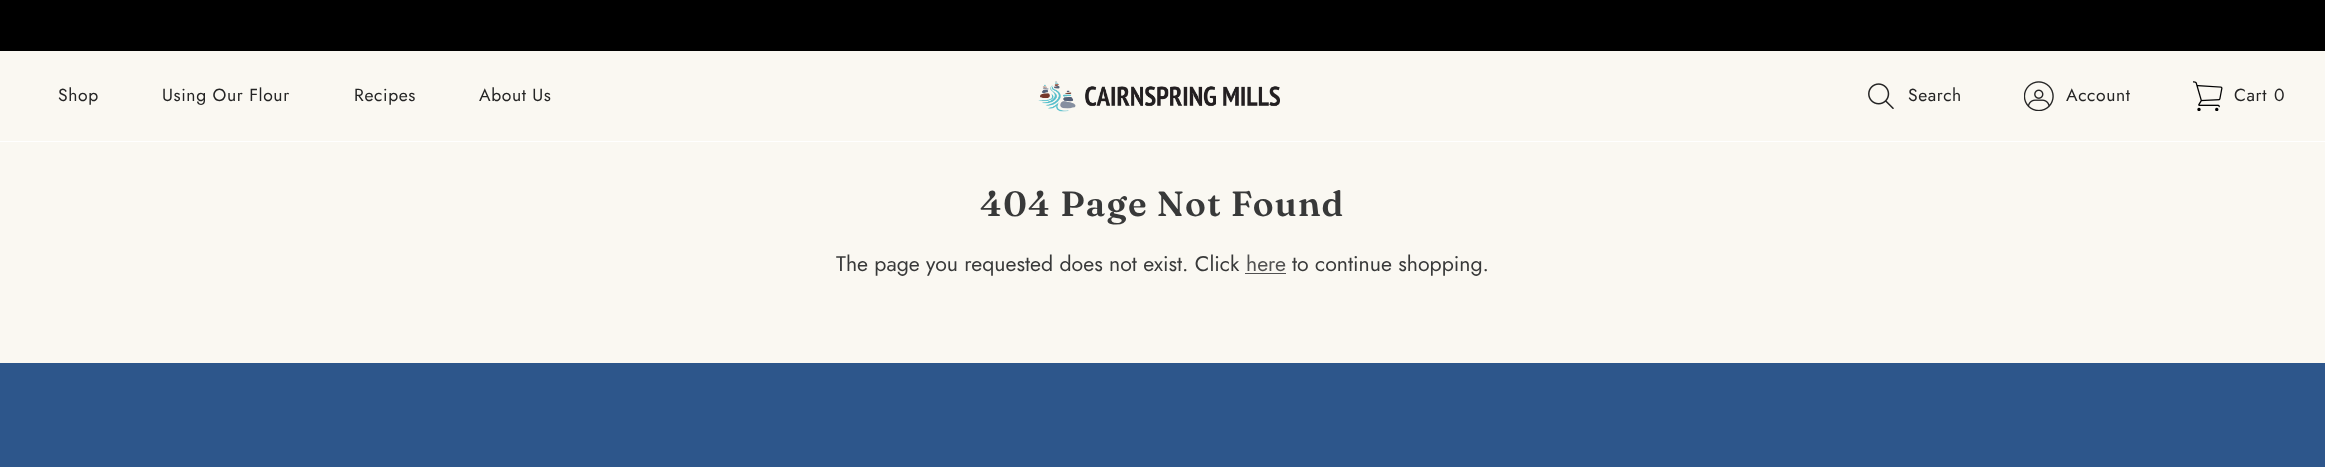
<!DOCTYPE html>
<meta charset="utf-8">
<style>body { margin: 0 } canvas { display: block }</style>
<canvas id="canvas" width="2325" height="467"></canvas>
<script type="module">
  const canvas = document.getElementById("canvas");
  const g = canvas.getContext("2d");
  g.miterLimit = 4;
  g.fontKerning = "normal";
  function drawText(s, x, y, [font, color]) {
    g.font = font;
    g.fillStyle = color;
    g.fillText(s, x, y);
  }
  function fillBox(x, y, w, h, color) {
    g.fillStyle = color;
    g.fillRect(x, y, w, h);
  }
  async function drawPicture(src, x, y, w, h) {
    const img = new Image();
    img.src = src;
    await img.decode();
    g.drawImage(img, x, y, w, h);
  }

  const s1 = ["17.5px Jost", "#242424"];
  const s2 = ["600 35px Fraunces", "#383939"];
  const s3 = ["21.25px Jost", "#383939"];
  const s4 = ["21.25px Jost", "#515151"];

  fillBox(0, 0, 2325, 467, "#FAF8F2");
  fillBox(0, 0, 2325, 51, "#000000");
  fillBox(0, 141, 2325, 1, "#FFFFFF");
  g.letterSpacing = "0.6px";
  drawText("Shop", 58, 101, s1);
  drawText("Using Our Flour", 162, 101, s1);
  drawText("Recipes", 354, 101, s1);
  drawText("About Us", 479, 101, s1);
  await drawPicture("pic1.png", 1038, 81, 242, 31);
  await drawPicture("pic2.png", 1868, 83, 26, 26);
  drawText("Search", 1908, 101, s1);
  await drawPicture("pic3.png", 2024, 81, 30, 30);
  drawText("Account", 2066, 101, s1);
  await drawPicture("pic4.png", 2193, 81, 30, 30);
  drawText("Cart", 2234, 101, s1);
  drawText("0", 2274, 101, s1);
  g.letterSpacing = "1.25px";
  drawText("404 Page Not Found", 980, 216, s2);
  g.letterSpacing = "0px";
  drawText("The page you requested does not exist. Click", 836, 271, s3);
  drawText("here", 1246, 271, s4);
  fillBox(1245, 273, 41, 1, "#515151");
  drawText("to continue shopping.", 1292, 271, s3);
  fillBox(0, 363, 2325, 104, "#2D568B");
</script>
